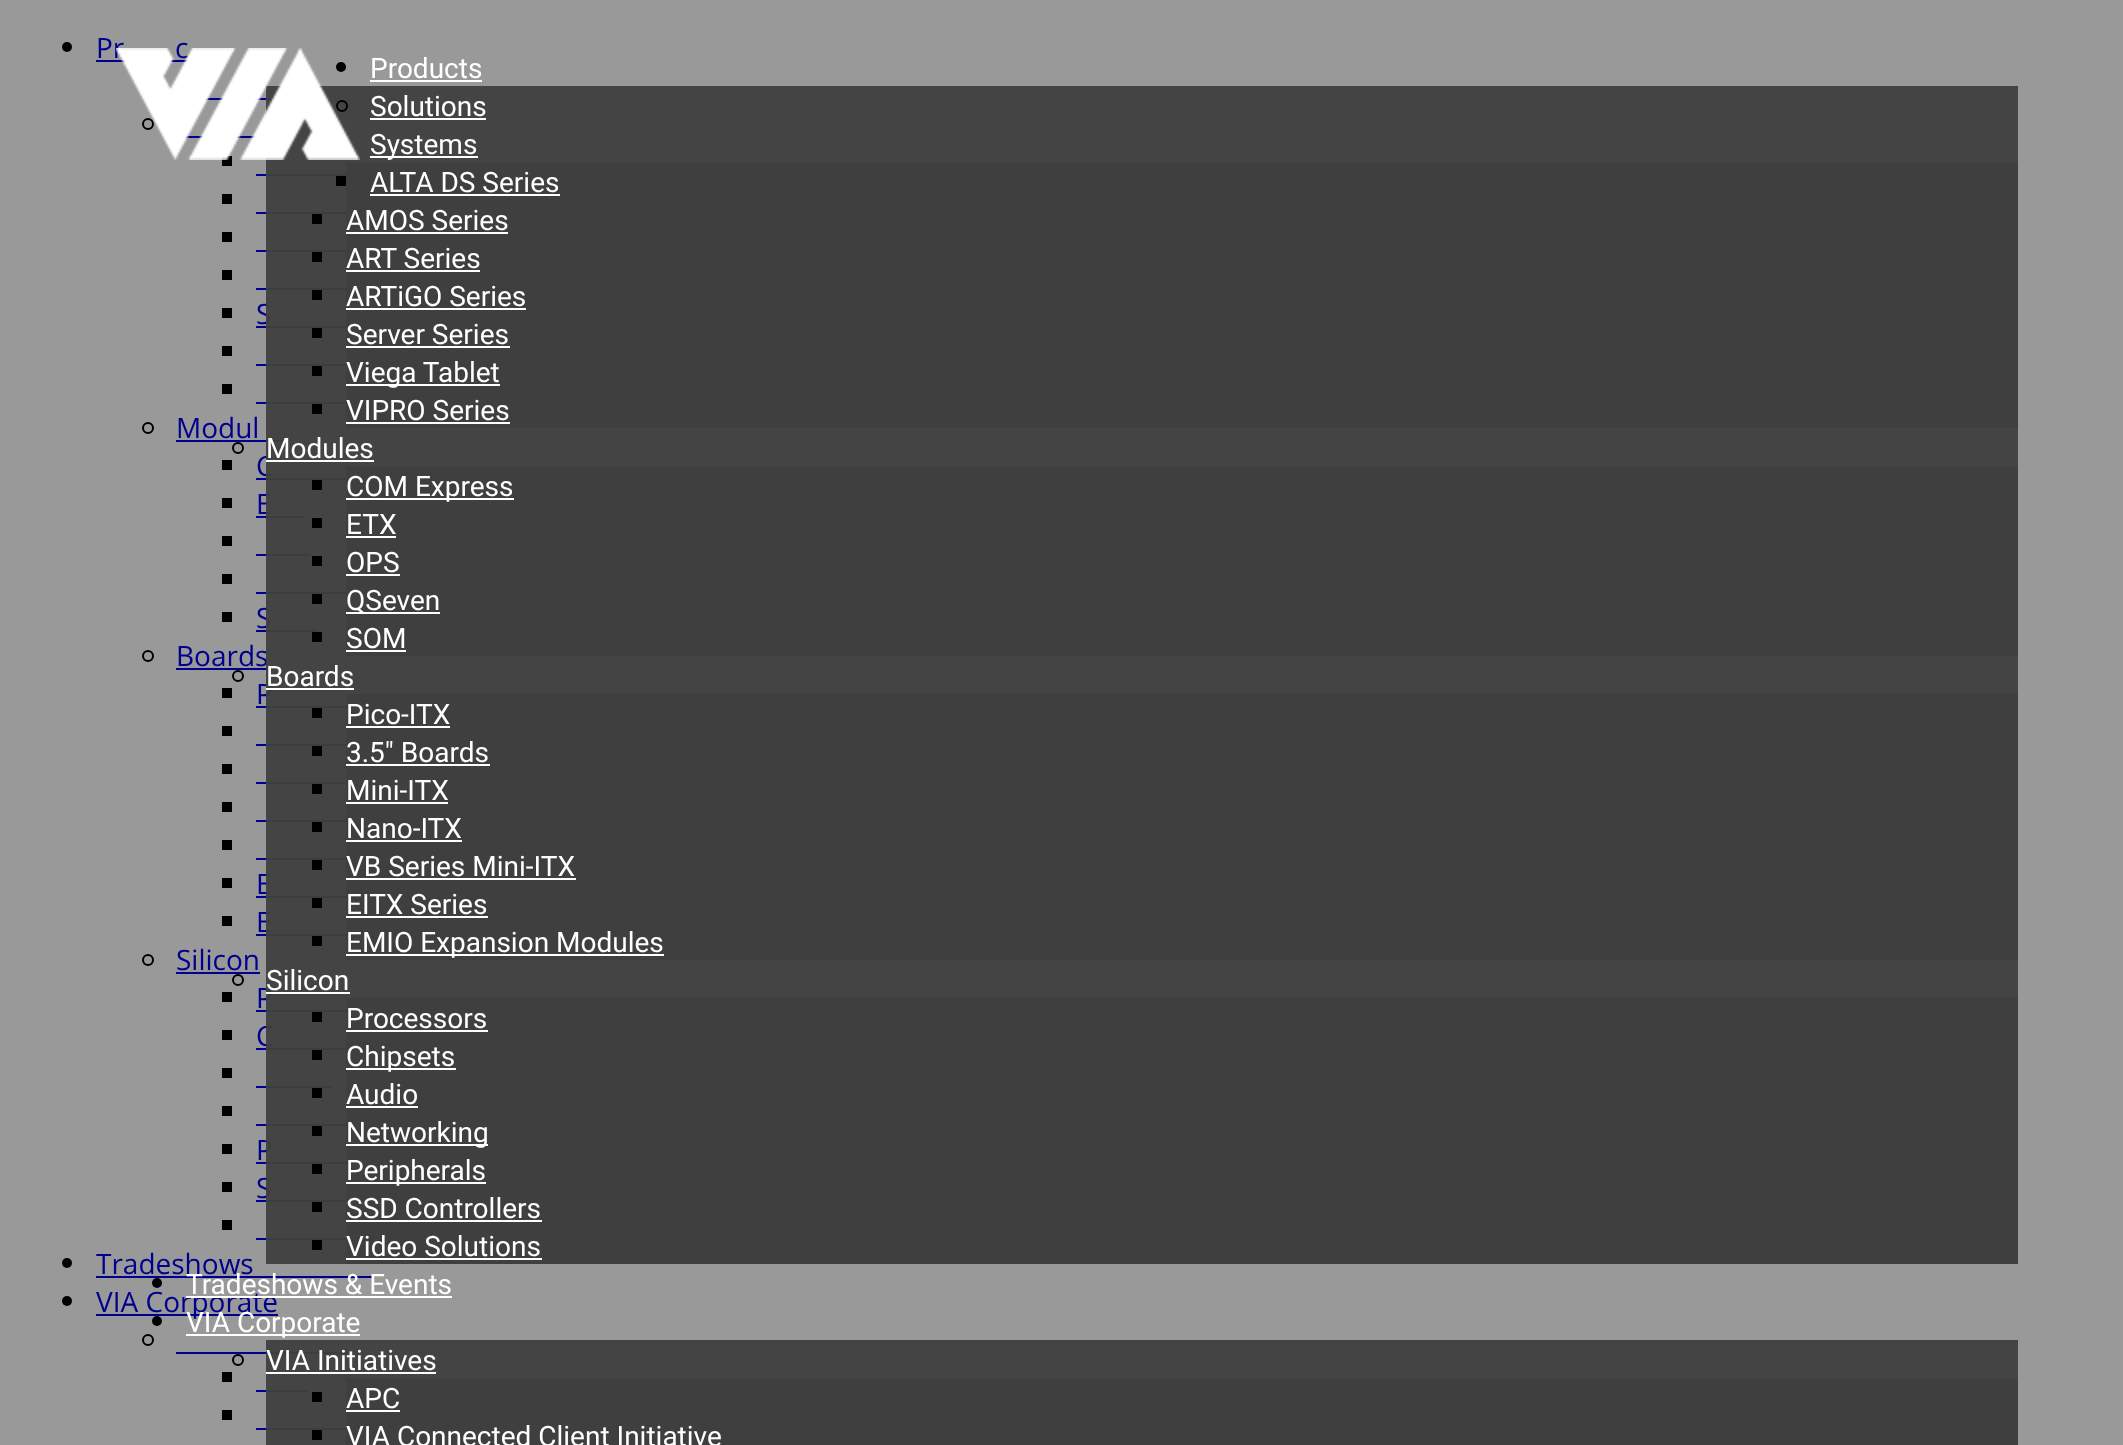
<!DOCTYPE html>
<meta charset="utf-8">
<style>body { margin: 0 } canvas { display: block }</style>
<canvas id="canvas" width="2123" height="1445"></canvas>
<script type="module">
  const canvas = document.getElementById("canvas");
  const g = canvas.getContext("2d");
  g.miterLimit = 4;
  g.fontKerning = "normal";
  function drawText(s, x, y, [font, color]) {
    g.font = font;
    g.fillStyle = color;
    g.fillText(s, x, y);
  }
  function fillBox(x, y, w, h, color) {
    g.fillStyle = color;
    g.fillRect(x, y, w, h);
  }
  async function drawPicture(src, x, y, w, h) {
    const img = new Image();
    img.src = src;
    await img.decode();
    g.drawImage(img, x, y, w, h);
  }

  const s1 = ["28px Open Sans", "#00008F"];
  const s2 = ["28px Roboto", "#FFFFFF"];

  fillBox(0, 0, 2123, 1445, "#999999");
  g.fillStyle = "#000000";
  g.beginPath();
  g.arc(67, 47, 5, 0, Math.PI * 2);
  g.fill();
  drawText("Pr", 96, 58, s1);
  drawText("c", 175, 58, s1);
  fillBox(96, 60, 93, 2, "#00008F");
  fillBox(205, 98, 71, 2, "#00008F");
  g.beginPath();
  g.arc(148, 124, 5, 0, Math.PI * 2);
  g.strokeStyle = "#000000";
  g.lineWidth = 2;
  g.stroke();
  fillBox(185, 136, 70, 2, "#00008F");
  fillBox(222, 156, 10, 10, "#000000");
  fillBox(256, 174, 194, 2, "#00008F");
  fillBox(222, 194, 10, 10, "#000000");
  fillBox(256, 212, 166, 2, "#00008F");
  fillBox(222, 232, 10, 10, "#000000");
  fillBox(256, 250, 136, 2, "#00008F");
  fillBox(222, 270, 10, 10, "#000000");
  fillBox(256, 288, 186, 2, "#00008F");
  fillBox(222, 308, 10, 10, "#000000");
  drawText("S", 256, 324, s1);
  fillBox(256, 326, 170, 2, "#00008F");
  fillBox(222, 346, 10, 10, "#000000");
  fillBox(256, 364, 158, 2, "#00008F");
  fillBox(222, 384, 10, 10, "#000000");
  fillBox(256, 402, 166, 2, "#00008F");
  g.beginPath();
  g.arc(148, 428, 5, 0, Math.PI * 2);
  g.stroke();
  drawText("Modul", 176, 438, s1);
  fillBox(176, 440, 112, 2, "#00008F");
  fillBox(222, 460, 10, 10, "#000000");
  drawText("C", 256, 476, s1);
  fillBox(256, 478, 174, 2, "#00008F");
  fillBox(222, 498, 10, 10, "#000000");
  drawText("E", 256, 514, s1);
  fillBox(256, 516, 48, 2, "#00008F");
  fillBox(222, 536, 10, 10, "#000000");
  fillBox(256, 554, 54, 2, "#00008F");
  fillBox(222, 574, 10, 10, "#000000");
  fillBox(256, 592, 100, 2, "#00008F");
  fillBox(222, 612, 10, 10, "#000000");
  drawText("S", 256, 628, s1);
  fillBox(256, 630, 62, 2, "#00008F");
  g.beginPath();
  g.arc(148, 656, 5, 0, Math.PI * 2);
  g.stroke();
  drawText("Boards", 176, 666, s1);
  fillBox(176, 668, 92, 2, "#00008F");
  fillBox(222, 688, 10, 10, "#000000");
  drawText("P", 256, 704, s1);
  fillBox(256, 706, 102, 2, "#00008F");
  fillBox(222, 726, 10, 10, "#000000");
  fillBox(256, 744, 150, 2, "#00008F");
  fillBox(222, 764, 10, 10, "#000000");
  fillBox(256, 782, 104, 2, "#00008F");
  fillBox(222, 802, 10, 10, "#000000");
  fillBox(256, 820, 120, 2, "#00008F");
  fillBox(222, 840, 10, 10, "#000000");
  fillBox(256, 858, 232, 2, "#00008F");
  fillBox(222, 878, 10, 10, "#000000");
  drawText("E", 256, 894, s1);
  fillBox(256, 896, 140, 2, "#00008F");
  fillBox(222, 916, 10, 10, "#000000");
  drawText("E", 256, 932, s1);
  fillBox(256, 934, 332, 2, "#00008F");
  g.beginPath();
  g.arc(148, 960, 5, 0, Math.PI * 2);
  g.stroke();
  drawText("Silicon", 176, 970, s1);
  fillBox(176, 972, 84, 2, "#00008F");
  fillBox(222, 992, 10, 10, "#000000");
  drawText("P", 256, 1008, s1);
  fillBox(256, 1010, 142, 2, "#00008F");
  fillBox(222, 1030, 10, 10, "#000000");
  drawText("C", 256, 1046, s1);
  fillBox(256, 1048, 112, 2, "#00008F");
  fillBox(222, 1068, 10, 10, "#000000");
  fillBox(256, 1086, 76, 2, "#00008F");
  fillBox(222, 1106, 10, 10, "#000000");
  fillBox(256, 1124, 150, 2, "#00008F");
  fillBox(222, 1144, 10, 10, "#000000");
  drawText("P", 256, 1160, s1);
  fillBox(256, 1162, 148, 2, "#00008F");
  fillBox(222, 1182, 10, 10, "#000000");
  drawText("S", 256, 1198, s1);
  fillBox(256, 1200, 202, 2, "#00008F");
  fillBox(222, 1220, 10, 10, "#000000");
  fillBox(256, 1238, 202, 2, "#00008F");
  g.fillStyle = "#000000";
  g.beginPath();
  g.arc(67, 1263, 5, 0, Math.PI * 2);
  g.fill();
  drawText("Tradeshows", 96, 1274, s1);
  fillBox(96, 1276, 278, 2, "#00008F");
  g.fillStyle = "#000000";
  g.beginPath();
  g.arc(67, 1301, 5, 0, Math.PI * 2);
  g.fill();
  fillBox(96, 1314, 182, 2, "#00008F");
  drawText("VIA Corporate", 96, 1312, s1);
  g.beginPath();
  g.arc(148, 1340, 5, 0, Math.PI * 2);
  g.stroke();
  fillBox(176, 1352, 174, 2, "#00008F");
  fillBox(222, 1372, 10, 10, "#000000");
  fillBox(256, 1390, 52, 2, "#00008F");
  fillBox(222, 1410, 10, 10, "#000000");
  fillBox(256, 1428, 390, 2, "#00008F");
  g.fillStyle = "#000000";
  g.beginPath();
  g.arc(341, 67, 5, 0, Math.PI * 2);
  g.fill();
  fillBox(266, 86, 1752, 38, "rgba(63, 63, 63, 0.95)");
  g.beginPath();
  g.arc(342, 106, 5, 0, Math.PI * 2);
  g.stroke();
  fillBox(266, 124, 1752, 304, "rgba(63, 63, 63, 0.95)");
  g.beginPath();
  g.arc(342, 144, 5, 0, Math.PI * 2);
  g.stroke();
  await drawPicture("pic1.png", 116, 48, 244, 112);
  drawText("Products", 370, 78, s2);
  fillBox(370, 80, 112, 2, "#FFFFFF");
  drawText("Solutions", 370, 116, s2);
  fillBox(370, 118, 116, 2, "#FFFFFF");
  fillBox(370, 156, 108, 2, "#FFFFFF");
  drawText("Systems", 370, 154, s2);
  fillBox(346, 162, 1672, 38, "rgba(63, 63, 63, 0.95)");
  fillBox(336, 176, 10, 10, "#000000");
  drawText("ALTA DS Series", 370, 192, s2);
  fillBox(370, 194, 190, 2, "#FFFFFF");
  fillBox(346, 200, 1672, 38, "rgba(63, 63, 63, 0.95)");
  fillBox(312, 214, 10, 10, "#000000");
  drawText("AMOS Series", 346, 230, s2);
  fillBox(346, 232, 162, 2, "#FFFFFF");
  fillBox(346, 238, 1672, 38, "rgba(63, 63, 63, 0.95)");
  fillBox(312, 252, 10, 10, "#000000");
  drawText("ART Series", 346, 268, s2);
  fillBox(346, 270, 134, 2, "#FFFFFF");
  fillBox(346, 276, 1672, 38, "rgba(63, 63, 63, 0.95)");
  fillBox(312, 290, 10, 10, "#000000");
  drawText("ARTiGO Series", 346, 306, s2);
  fillBox(346, 308, 180, 2, "#FFFFFF");
  fillBox(346, 314, 1672, 38, "rgba(63, 63, 63, 0.95)");
  fillBox(312, 328, 10, 10, "#000000");
  drawText("Server Series", 346, 344, s2);
  fillBox(346, 346, 164, 2, "#FFFFFF");
  fillBox(346, 352, 1672, 38, "rgba(63, 63, 63, 0.95)");
  fillBox(312, 366, 10, 10, "#000000");
  fillBox(346, 384, 154, 2, "#FFFFFF");
  drawText("Viega Tablet", 346, 382, s2);
  fillBox(346, 390, 1672, 38, "rgba(63, 63, 63, 0.95)");
  fillBox(312, 404, 10, 10, "#000000");
  drawText("VIPRO Series", 346, 420, s2);
  fillBox(346, 422, 164, 2, "#FFFFFF");
  fillBox(266, 428, 1752, 228, "rgba(63, 63, 63, 0.95)");
  g.beginPath();
  g.arc(238, 448, 5, 0, Math.PI * 2);
  g.stroke();
  drawText("Modules", 266, 458, s2);
  fillBox(266, 460, 108, 2, "#FFFFFF");
  fillBox(346, 466, 1672, 38, "rgba(63, 63, 63, 0.95)");
  fillBox(312, 480, 10, 10, "#000000");
  fillBox(346, 498, 168, 2, "#FFFFFF");
  drawText("COM Express", 346, 496, s2);
  fillBox(346, 504, 1672, 38, "#3F3F3F");
  fillBox(312, 518, 10, 10, "#000000");
  drawText("ETX", 346, 534, s2);
  fillBox(346, 536, 50, 2, "#FFFFFF");
  fillBox(346, 542, 1672, 38, "rgba(63, 63, 63, 0.95)");
  fillBox(312, 556, 10, 10, "#000000");
  drawText("OPS", 346, 572, s2);
  fillBox(346, 574, 54, 2, "#FFFFFF");
  fillBox(346, 580, 1672, 38, "rgba(63, 63, 63, 0.95)");
  fillBox(312, 594, 10, 10, "#000000");
  fillBox(346, 612, 94, 2, "#FFFFFF");
  drawText("QSeven", 346, 610, s2);
  fillBox(346, 618, 1672, 38, "#3F3F3F");
  fillBox(312, 632, 10, 10, "#000000");
  drawText("SOM", 346, 648, s2);
  fillBox(346, 650, 60, 2, "#FFFFFF");
  fillBox(266, 656, 1752, 304, "rgba(63, 63, 63, 0.95)");
  g.beginPath();
  g.arc(238, 676, 5, 0, Math.PI * 2);
  g.stroke();
  drawText("Boards", 266, 686, s2);
  fillBox(266, 688, 88, 2, "#FFFFFF");
  fillBox(346, 694, 1672, 38, "rgba(63, 63, 63, 0.95)");
  fillBox(312, 708, 10, 10, "#000000");
  drawText("Pico-ITX", 346, 724, s2);
  fillBox(346, 726, 104, 2, "#FFFFFF");
  fillBox(346, 732, 1672, 38, "rgba(63, 63, 63, 0.95)");
  fillBox(312, 746, 10, 10, "#000000");
  drawText("3.5″ Boards", 346, 762, s2);
  fillBox(346, 764, 144, 2, "#FFFFFF");
  fillBox(346, 770, 1672, 38, "rgba(63, 63, 63, 0.95)");
  fillBox(312, 784, 10, 10, "#000000");
  drawText("Mini-ITX", 346, 800, s2);
  fillBox(346, 802, 102, 2, "#FFFFFF");
  fillBox(346, 808, 1672, 38, "rgba(63, 63, 63, 0.95)");
  fillBox(312, 822, 10, 10, "#000000");
  drawText("Nano-ITX", 346, 838, s2);
  fillBox(346, 840, 116, 2, "#FFFFFF");
  fillBox(346, 846, 1672, 38, "rgba(63, 63, 63, 0.95)");
  fillBox(312, 860, 10, 10, "#000000");
  drawText("VB Series Mini-ITX", 346, 876, s2);
  fillBox(346, 878, 230, 2, "#FFFFFF");
  fillBox(346, 884, 1672, 38, "rgba(63, 63, 63, 0.95)");
  fillBox(312, 898, 10, 10, "#000000");
  drawText("EITX Series", 346, 914, s2);
  fillBox(346, 916, 142, 2, "#FFFFFF");
  fillBox(346, 922, 1672, 38, "rgba(63, 63, 63, 0.95)");
  fillBox(312, 936, 10, 10, "#000000");
  fillBox(346, 954, 318, 2, "#FFFFFF");
  drawText("EMIO Expansion Modules", 346, 952, s2);
  fillBox(266, 960, 1752, 304, "rgba(63, 63, 63, 0.95)");
  g.beginPath();
  g.arc(238, 980, 5, 0, Math.PI * 2);
  g.stroke();
  drawText("Silicon", 266, 990, s2);
  fillBox(266, 992, 84, 2, "#FFFFFF");
  fillBox(346, 998, 1672, 38, "rgba(63, 63, 63, 0.95)");
  fillBox(312, 1012, 10, 10, "#000000");
  drawText("Processors", 346, 1028, s2);
  fillBox(346, 1030, 142, 2, "#FFFFFF");
  fillBox(346, 1036, 1672, 38, "rgba(63, 63, 63, 0.95)");
  fillBox(312, 1050, 10, 10, "#000000");
  fillBox(346, 1068, 110, 2, "#FFFFFF");
  drawText("Chipsets", 346, 1066, s2);
  fillBox(346, 1074, 1672, 38, "rgba(63, 63, 63, 0.95)");
  fillBox(312, 1088, 10, 10, "#000000");
  drawText("Audio", 346, 1104, s2);
  fillBox(346, 1106, 72, 2, "#FFFFFF");
  fillBox(346, 1112, 1672, 38, "rgba(63, 63, 63, 0.95)");
  fillBox(312, 1126, 10, 10, "#000000");
  fillBox(346, 1144, 142, 2, "#FFFFFF");
  drawText("Networking", 346, 1142, s2);
  fillBox(346, 1150, 1672, 38, "rgba(63, 63, 63, 0.95)");
  fillBox(312, 1164, 10, 10, "#000000");
  fillBox(346, 1182, 140, 2, "#FFFFFF");
  drawText("Peripherals", 346, 1180, s2);
  fillBox(346, 1188, 1672, 38, "rgba(63, 63, 63, 0.95)");
  fillBox(312, 1202, 10, 10, "#000000");
  drawText("SSD Controllers", 346, 1218, s2);
  fillBox(346, 1220, 196, 2, "#FFFFFF");
  fillBox(346, 1226, 1672, 38, "rgba(63, 63, 63, 0.95)");
  fillBox(312, 1240, 10, 10, "#000000");
  drawText("Video Solutions", 346, 1256, s2);
  fillBox(346, 1258, 196, 2, "#FFFFFF");
  g.fillStyle = "#000000";
  g.beginPath();
  g.arc(157, 1283, 5, 0, Math.PI * 2);
  g.fill();
  drawText("Tradeshows & Events", 186, 1294, s2);
  fillBox(186, 1296, 266, 2, "#FFFFFF");
  g.fillStyle = "#000000";
  g.beginPath();
  g.arc(157, 1321, 5, 0, Math.PI * 2);
  g.fill();
  fillBox(186, 1334, 174, 2, "#FFFFFF");
  drawText("VIA Corporate", 186, 1332, s2);
  fillBox(266, 1340, 1752, 105, "rgba(63, 63, 63, 0.95)");
  g.beginPath();
  g.arc(238, 1360, 5, 0, Math.PI * 2);
  g.stroke();
  drawText("VIA Initiatives", 266, 1370, s2);
  fillBox(266, 1372, 170, 2, "#FFFFFF");
  fillBox(346, 1378, 1672, 38, "rgba(63, 63, 63, 0.95)");
  fillBox(312, 1392, 10, 10, "#000000");
  drawText("APC", 346, 1408, s2);
  fillBox(346, 1410, 54, 2, "#FFFFFF");
  fillBox(346, 1416, 1672, 29, "rgba(63, 63, 63, 0.95)");
  fillBox(312, 1430, 10, 10, "#000000");
  drawText("VIA Connected Client Initiative", 346, 1446, s2);
</script>
